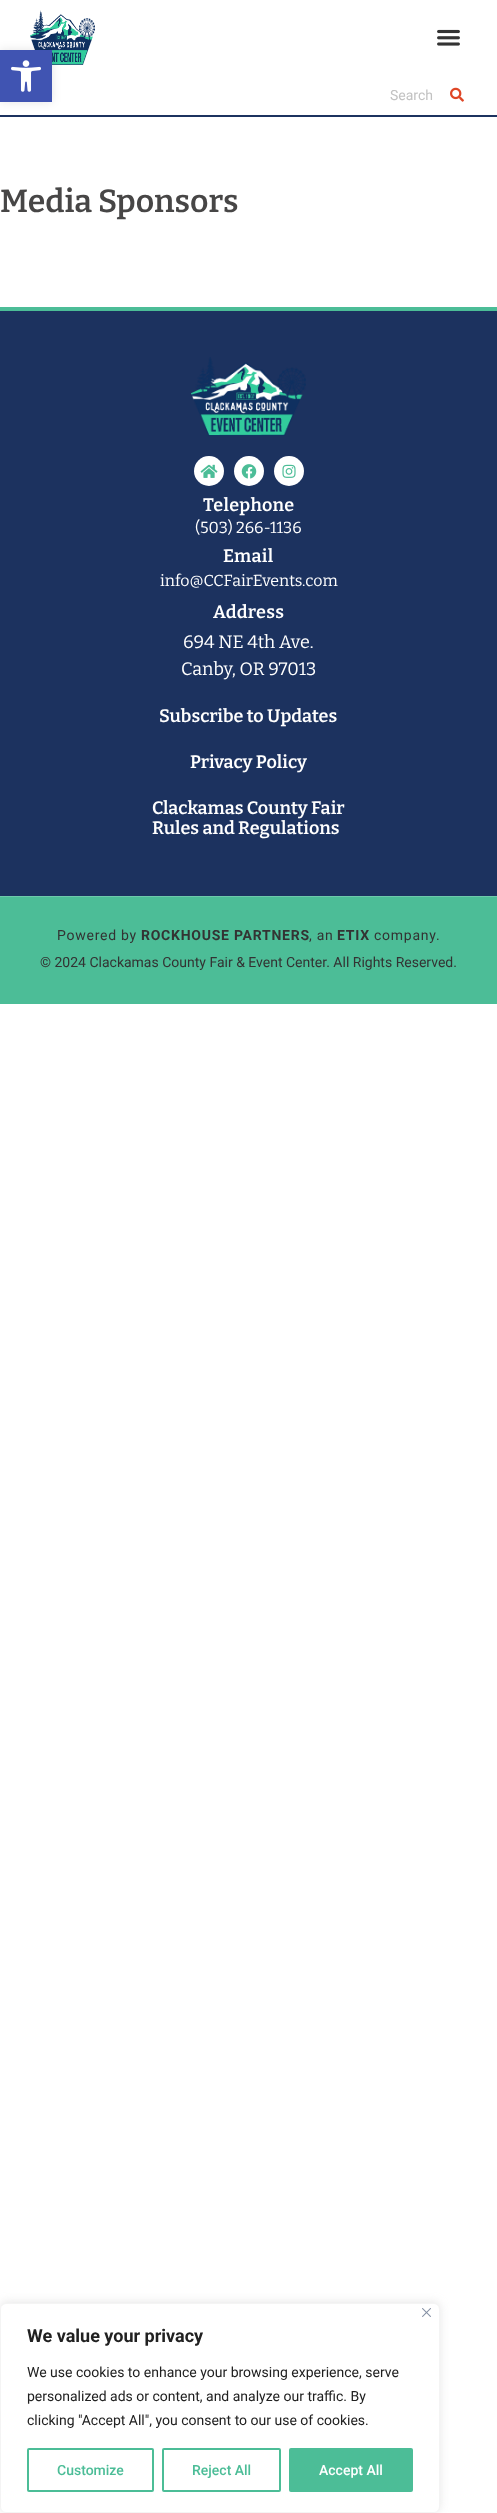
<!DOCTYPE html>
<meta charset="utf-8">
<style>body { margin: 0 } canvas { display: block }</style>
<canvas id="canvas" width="497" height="2513"></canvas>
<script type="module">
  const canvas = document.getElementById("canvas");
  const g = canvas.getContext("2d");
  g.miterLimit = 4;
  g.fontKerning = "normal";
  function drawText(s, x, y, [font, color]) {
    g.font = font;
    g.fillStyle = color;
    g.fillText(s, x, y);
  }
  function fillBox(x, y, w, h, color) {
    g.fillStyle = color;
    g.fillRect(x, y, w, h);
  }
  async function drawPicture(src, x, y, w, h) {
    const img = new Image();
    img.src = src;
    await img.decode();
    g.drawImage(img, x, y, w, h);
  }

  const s1 = ["14px Roboto", "#C2C2C2"];
  const s2 = ["600 32px Bitter", "#474646"];
  const s3 = ["600 18px Bitter", "#FFFFFF"];
  const s4 = ["16px Bitter", "#FFFFFF"];
  const s5 = ["18px Bitter", "#FFFFFF"];
  const s6 = ["14px Roboto", "#333333"];
  const s7 = ["bold 14px Roboto", "#333333"];
  const s8 = ["bold 18px Roboto", "#212121"];
  const s9 = ["14px Roboto", "#212121"];
  const s10 = ["500 14px Roboto", "#4CBD97"];
  const s11 = ["500 14px Roboto", "#FFFFFF"];

  fillBox(0, 0, 497, 2513, "#FFFFFF");
  fillBox(0, 115, 497, 2, "#1C325F");
  await drawPicture("pic2.png", 30, 10, 65, 55);
  g.fillStyle = "rgba(0, 0, 0, 0.1)";
  g.filter = "blur(5px)";
  g.beginPath();
  g.rect(0, 50, 52, 52);
  g.fill();
  g.filter = "none";
  fillBox(0, 50, 52, 52, "#4054B2");
  await drawPicture("pic1.png", 11, 60, 30, 32);
  await drawPicture("pic3.png", 437, 29, 23, 17);
  drawText("Search", 390, 100, s1);
  await drawPicture("pic4.png", 450, 87, 14, 15);
  drawText("Media Sponsors", 0, 212, s2);
  fillBox(0, 311, 497, 585, "#1C325F");
  fillBox(0, 307, 497, 4, "#4CBD97");
  await drawPicture("pic5.png", 191, 357, 115, 79);
  g.fillStyle = "#FFFFFF";
  g.beginPath();
  g.arc(209, 471, 15, 0, Math.PI * 2);
  g.fill();
  await drawPicture("pic6.png", 200, 464, 18, 14);
  g.beginPath();
  g.arc(249, 471, 15, 0, Math.PI * 2);
  g.fill();
  await drawPicture("pic7.png", 241, 464, 16, 15);
  g.beginPath();
  g.arc(289, 471, 15, 0, Math.PI * 2);
  g.fill();
  await drawPicture("pic8.png", 282, 464, 14, 14);
  g.letterSpacing = "0.25px";
  drawText("Telephone", 203, 511, s3);
  g.letterSpacing = "0px";
  drawText("(503) 266-1136", 195, 533, s4);
  g.letterSpacing = "0.25px";
  drawText("Email", 223, 562, s3);
  g.letterSpacing = "0px";
  drawText("info@CCFairEvents.com", 160, 586, s4);
  g.letterSpacing = "0.25px";
  drawText("Address", 213, 618, s3);
  g.letterSpacing = "0px";
  drawText("694 NE 4th Ave.", 183, 648, s5);
  drawText("Canby, OR 97013", 181, 675, s5);
  drawText("Subscribe to Updates", 159, 722, s3);
  drawText("Privacy Policy", 190, 768, s3);
  drawText("Clackamas County Fair", 152, 814, s3);
  drawText("Rules and Regulations", 152, 834, s3);
  fillBox(0, 897, 497, 107, "#4CBD97");
  fillBox(0, 896, 497, 1, "#6ECAAB");
  g.letterSpacing = "0.75px";
  drawText("Powered by", 57, 940, s6);
  drawText("ROCKHOUSE PARTNERS", 141, 940, s7);
  drawText(", an", 309, 940, s6);
  drawText("ETIX", 337, 940, s7);
  drawText("company.", 374, 940, s6);
  g.letterSpacing = "0px";
  drawText("© 2024 Clackamas County Fair & Event Center. All Rights Reserved.", 40, 967, s6);
  g.fillStyle = "rgba(172, 171, 171, 0.3)";
  g.filter = "blur(5px)";
  g.beginPath();
  g.roundRect(0, 2302, 440, 210, 6);
  g.fill();
  g.filter = "none";
  g.fillStyle = "#FFFFFF";
  g.beginPath();
  g.roundRect(0.5, 2303.5, 439, 209, 5.5);
  g.fill();
  g.strokeStyle = "#F4F4F4";
  g.stroke();
  await drawPicture("pic9.png", 422, 2308, 9, 9);
  drawText("We value your privacy", 27, 2342, s8);
  drawText("We use cookies to enhance your browsing experience, serve", 27, 2377, s9);
  drawText("personalized ads or content, and analyze our traffic. By", 27, 2401, s9);
  drawText("clicking \"Accept All\", you consent to our use of cookies.", 27, 2425, s9);
  g.beginPath();
  g.roundRect(28, 2449, 125, 42, 1);
  g.strokeStyle = "#4CBD97";
  g.lineWidth = 2;
  g.stroke();
  drawText("Customize", 57, 2475, s10);
  g.beginPath();
  g.roundRect(163, 2449, 117, 42, 1);
  g.stroke();
  drawText("Reject All", 192, 2475, s10);
  g.beginPath();
  g.roundRect(290, 2449, 122, 42, 1);
  g.fill();
  g.stroke();
  drawText("Accept All", 319, 2475, s11);
</script>
